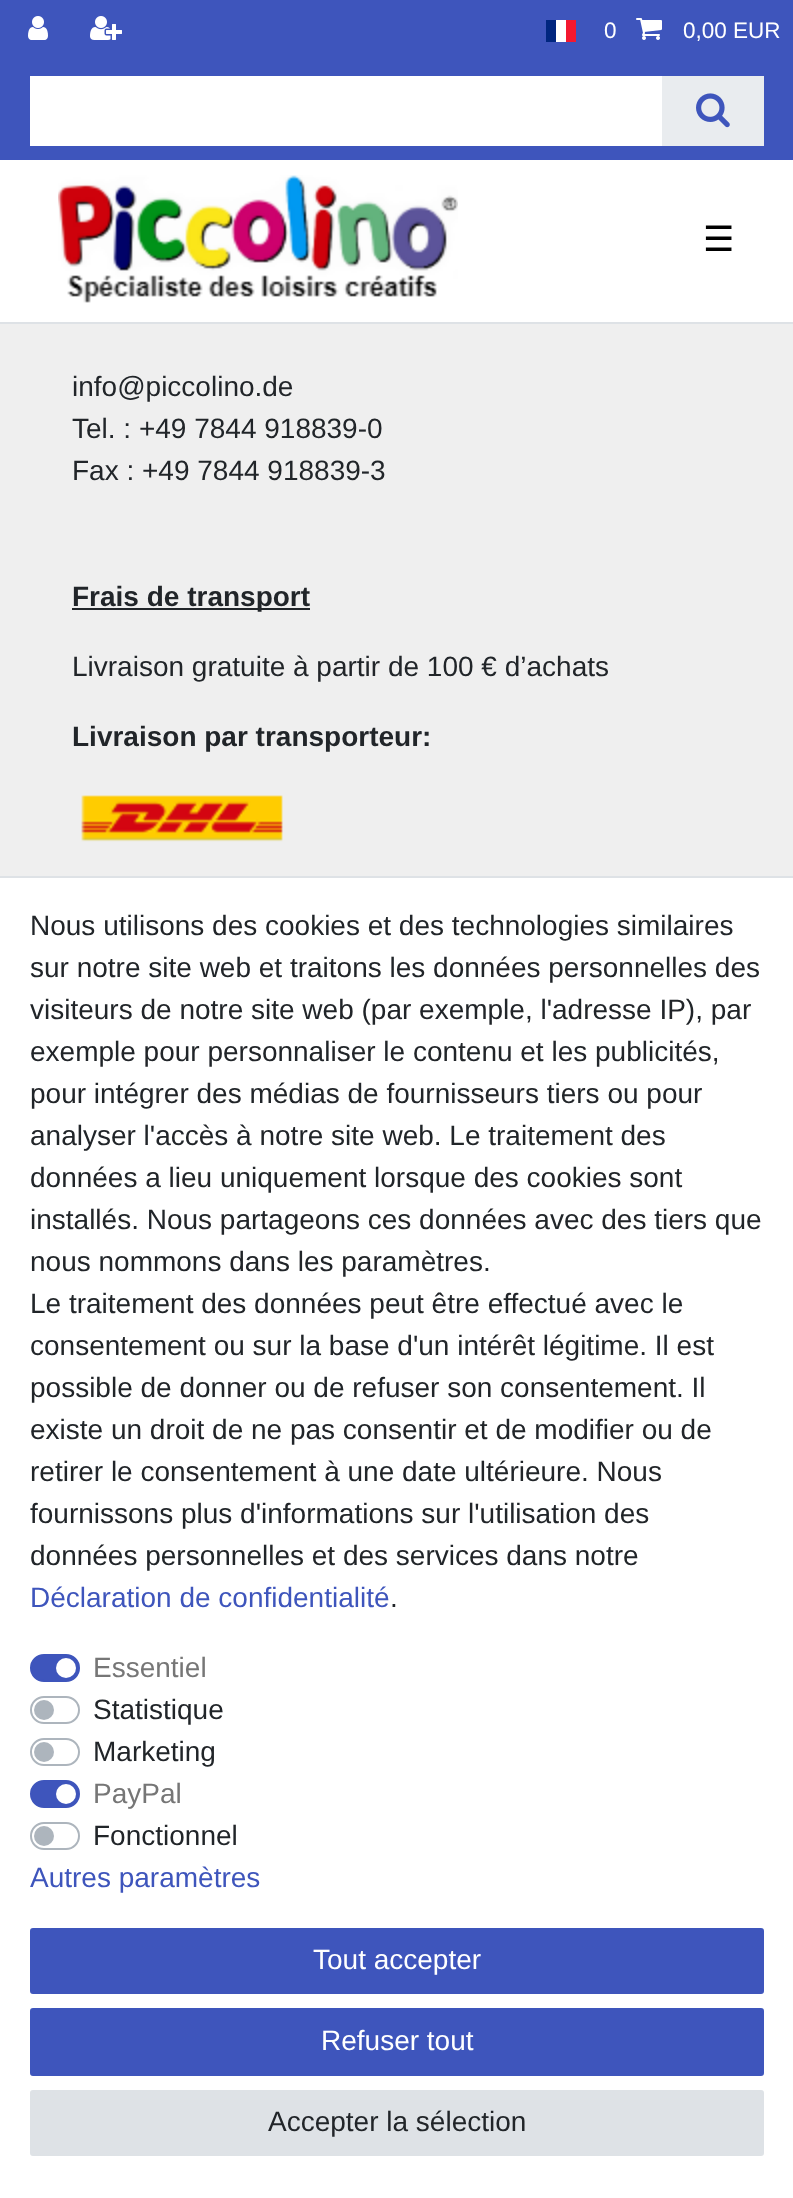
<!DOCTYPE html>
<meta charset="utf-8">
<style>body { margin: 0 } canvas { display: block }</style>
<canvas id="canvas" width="793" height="2198"></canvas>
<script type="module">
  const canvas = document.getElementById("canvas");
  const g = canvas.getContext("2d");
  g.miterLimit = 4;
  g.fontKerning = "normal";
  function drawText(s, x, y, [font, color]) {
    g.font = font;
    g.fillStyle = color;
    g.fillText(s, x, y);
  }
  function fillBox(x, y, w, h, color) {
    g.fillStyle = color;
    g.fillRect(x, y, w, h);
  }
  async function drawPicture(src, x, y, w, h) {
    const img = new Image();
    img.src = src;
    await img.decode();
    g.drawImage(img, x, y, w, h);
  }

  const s1 = ["22.5px Liberation Sans", "#FFFFFF"];
  const s2 = ["35px DejaVu Sans", "#000000"];
  const s3 = ["28px Liberation Sans", "#212529"];
  const s4 = ["bold 28px Liberation Sans", "#212529"];
  const s5 = ["28px Liberation Sans", "#3E55BC"];
  const s6 = ["28px Liberation Sans", "#767676"];
  const s7 = ["28px Liberation Sans", "#FFFFFF"];

  fillBox(0, 0, 793, 2198, "#EFEFEF");
  fillBox(0, 0, 793, 160, "#3E55BC");
  await drawPicture("pic1.png", 28, 16, 20, 24);
  await drawPicture("pic2.png", 90, 16, 32, 24);
  fillBox(556, 20, 10, 22, "#FFFFFF");
  fillBox(546, 20, 10, 22, "#00267F");
  fillBox(566, 20, 10, 22, "#F31830");
  drawText("0", 604, 38, s1);
  await drawPicture("pic3.png", 636, 18, 26, 22);
  drawText("0,00 EUR", 683, 38, s1);
  fillBox(30, 76, 632, 70, "#FFFFFF");
  fillBox(662, 76, 102, 70, "#E9ECEF");
  await drawPicture("pic4.png", 696, 93, 34, 35);
  fillBox(0, 160, 793, 162, "#FFFFFF");
  fillBox(0, 322, 793, 2, "#DEE2E6");
  await drawPicture("pic5.png", 58, 175, 400, 128);
  drawText("☰", 703, 251, s2);
  drawText("info@piccolino.de", 72, 396, s3);
  drawText("Tel. : +49 7844 918839-0", 72, 438, s3);
  drawText("Fax : +49 7844 918839-3", 72, 480, s3);
  fillBox(72, 608, 238, 2, "#212529");
  drawText("Frais de transport", 72, 606, s4);
  drawText("Livraison gratuite à partir de 100 € d’achats", 72, 676, s3);
  drawText("Livraison par transporteur:", 72, 746, s4);
  await drawPicture("pic6.png", 81, 795, 202, 47);
  fillBox(0, 878, 793, 1320, "#FFFFFF");
  fillBox(0, 876, 793, 2, "#DEE2E6");
  drawText("Nous utilisons des cookies et des technologies similaires", 30, 935, s3);
  drawText("sur notre site web et traitons les données personnelles des", 30, 977, s3);
  drawText("visiteurs de notre site web (par exemple, l'adresse IP), par", 30, 1019, s3);
  drawText("exemple pour personnaliser le contenu et les publicités,", 30, 1061, s3);
  drawText("pour intégrer des médias de fournisseurs tiers ou pour", 30, 1103, s3);
  drawText("analyser l'accès à notre site web. Le traitement des", 30, 1145, s3);
  drawText("données a lieu uniquement lorsque des cookies sont", 30, 1187, s3);
  drawText("installés. Nous partageons ces données avec des tiers que", 30, 1229, s3);
  drawText("nous nommons dans les paramètres.", 30, 1271, s3);
  drawText("Le traitement des données peut être effectué avec le", 30, 1313, s3);
  drawText("consentement ou sur la base d'un intérêt légitime. Il est", 30, 1355, s3);
  drawText("possible de donner ou de refuser son consentement. Il", 30, 1397, s3);
  drawText("existe un droit de ne pas consentir et de modifier ou de", 30, 1439, s3);
  drawText("retirer le consentement à une date ultérieure. Nous", 30, 1481, s3);
  drawText("fournissons plus d'informations sur l'utilisation des", 30, 1523, s3);
  drawText("données personnelles et des services dans notre", 30, 1565, s3);
  drawText("Déclaration de confidentialité", 30, 1607, s5);
  drawText(".", 390, 1607, s3);
  g.fillStyle = "#3E55BC";
  g.beginPath();
  g.roundRect(31, 1655, 48, 26, 13);
  g.fill();
  g.strokeStyle = "#3E55BC";
  g.lineWidth = 2;
  g.stroke();
  drawText("Essentiel", 93, 1677, s6);
  g.fillStyle = "#FFFFFF";
  g.beginPath();
  g.arc(66, 1668, 10, 0, Math.PI * 2);
  g.fill();
  g.beginPath();
  g.roundRect(31, 1697, 48, 26, 13);
  g.strokeStyle = "#ADB5BD";
  g.stroke();
  drawText("Statistique", 93, 1719, s3);
  g.fillStyle = "#ADB5BD";
  g.beginPath();
  g.arc(44, 1710, 10, 0, Math.PI * 2);
  g.fill();
  g.beginPath();
  g.roundRect(31, 1739, 48, 26, 13);
  g.stroke();
  drawText("Marketing", 93, 1761, s3);
  g.fillStyle = "#ADB5BD";
  g.beginPath();
  g.arc(44, 1752, 10, 0, Math.PI * 2);
  g.fill();
  g.fillStyle = "#3E55BC";
  g.beginPath();
  g.roundRect(31, 1781, 48, 26, 13);
  g.fill();
  g.strokeStyle = "#3E55BC";
  g.stroke();
  drawText("PayPal", 93, 1803, s6);
  g.fillStyle = "#FFFFFF";
  g.beginPath();
  g.arc(66, 1794, 10, 0, Math.PI * 2);
  g.fill();
  g.beginPath();
  g.roundRect(31, 1823, 48, 26, 13);
  g.strokeStyle = "#ADB5BD";
  g.stroke();
  drawText("Fonctionnel", 93, 1845, s3);
  g.fillStyle = "#ADB5BD";
  g.beginPath();
  g.arc(44, 1836, 10, 0, Math.PI * 2);
  g.fill();
  drawText("Autres paramètres", 30, 1887, s5);
  g.beginPath();
  g.roundRect(31, 1929, 732, 64, 2);
  g.fill();
  g.strokeStyle = "#3E55BC";
  g.stroke();
  drawText("Tout accepter", 313, 1969, s7);
  g.fillStyle = "#3E55BC";
  g.beginPath();
  g.roundRect(31, 2009, 732, 66, 2);
  g.fill();
  g.stroke();
  drawText("Refuser tout", 321, 2050, s7);
  g.fillStyle = "#DEE2E6";
  g.beginPath();
  g.roundRect(31, 2091, 732, 64, 2);
  g.fill();
  g.strokeStyle = "#DEE2E6";
  g.stroke();
  drawText("Accepter la sélection", 268, 2131, s3);
</script>
